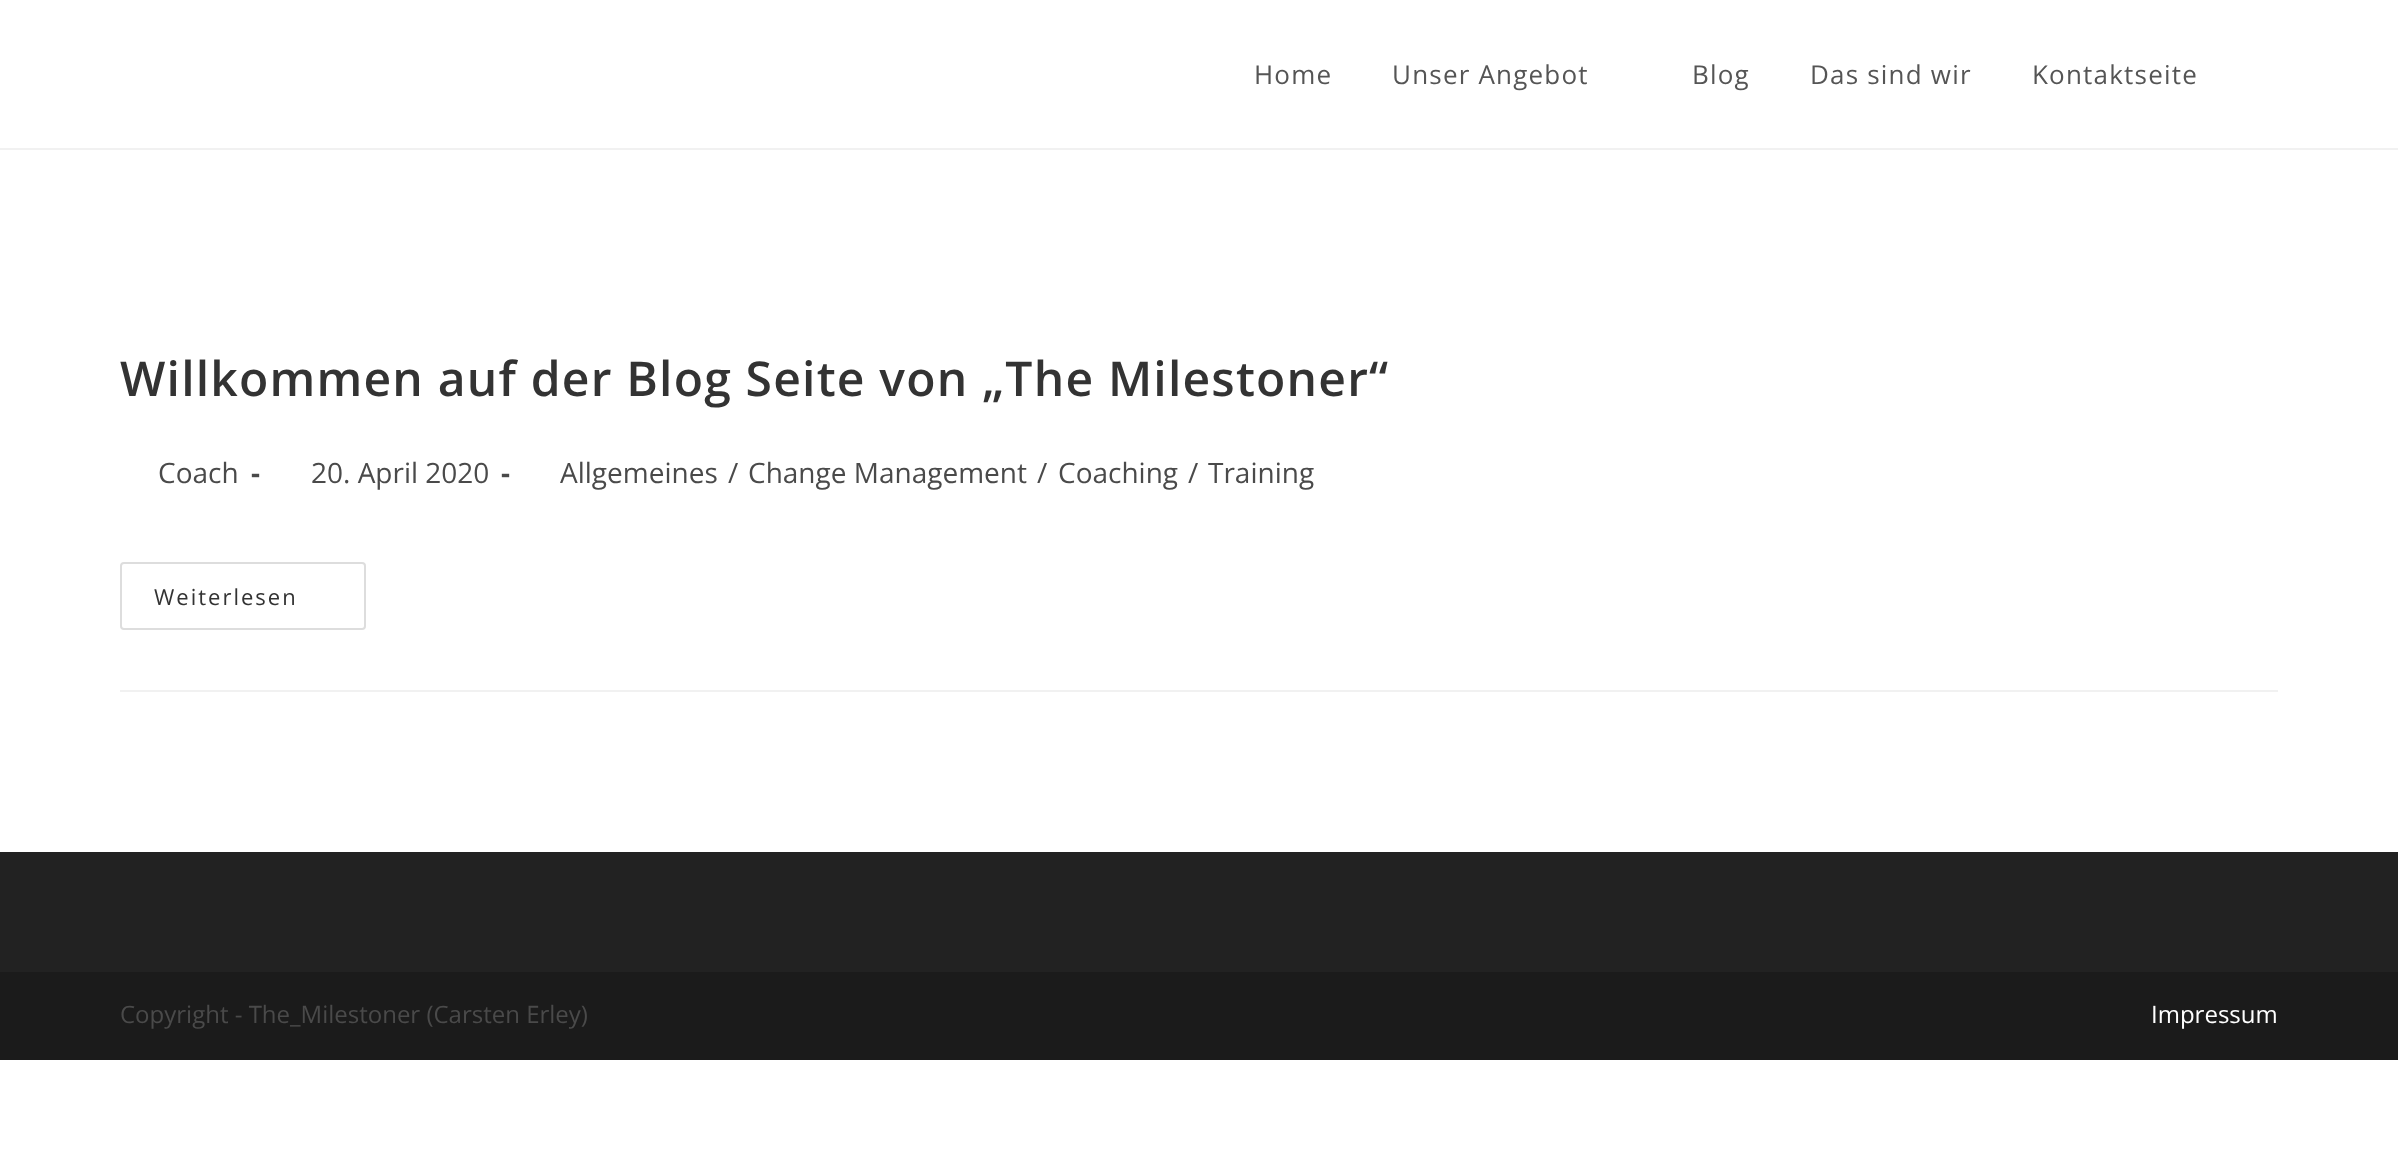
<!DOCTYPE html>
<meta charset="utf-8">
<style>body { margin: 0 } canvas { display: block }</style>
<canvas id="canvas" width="2398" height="1155"></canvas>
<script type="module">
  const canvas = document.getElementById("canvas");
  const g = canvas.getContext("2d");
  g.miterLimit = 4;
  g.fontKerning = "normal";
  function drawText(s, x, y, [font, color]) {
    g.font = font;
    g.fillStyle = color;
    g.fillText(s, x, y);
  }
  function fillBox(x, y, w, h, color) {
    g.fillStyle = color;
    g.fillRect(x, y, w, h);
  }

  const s1 = ["26px Open Sans", "#555555"];
  const s2 = ["600 48px Open Sans", "#333333"];
  const s3 = ["28px Open Sans", "#4A4A4A"];
  const s4 = ["bold 28px Open Sans", "#4A4A4A"];
  const s5 = ["22px Open Sans", "#333333"];
  const s6 = ["24px Open Sans", "#4A4A4A"];
  const s7 = ["24px Open Sans", "#FFFFFF"];

  fillBox(0, 0, 2398, 1155, "#FFFFFF");
  fillBox(0, 148, 2398, 2, "#F1F1F1");
  g.letterSpacing = "1.2px";
  drawText("Home", 1254, 84, s1);
  drawText("Unser Angebot", 1392, 84, s1);
  drawText("Blog", 1692, 84, s1);
  drawText("Das sind wir", 1810, 84, s1);
  drawText("Kontaktseite", 2032, 84, s1);
  fillBox(120, 690, 2158, 2, "#F1F1F1");
  drawText("Willkommen auf der Blog Seite von „The Milestoner“", 120, 396, s2);
  g.letterSpacing = "0px";
  drawText("Coach", 158, 483, s3);
  drawText("-", 251, 483, s4);
  drawText("20. April 2020", 311, 483, s3);
  drawText("-", 501, 483, s4);
  drawText("Allgemeines", 560, 483, s3);
  drawText("/", 728, 483, s3);
  drawText("Change Management", 748, 483, s3);
  drawText("/", 1037, 483, s3);
  drawText("Coaching", 1058, 483, s3);
  drawText("/", 1188, 483, s3);
  drawText("Training", 1208, 483, s3);
  g.beginPath();
  g.roundRect(121, 563, 244, 66, 3);
  g.strokeStyle = "#DDDDDD";
  g.lineWidth = 2;
  g.stroke();
  g.letterSpacing = "2px";
  drawText("Weiterlesen", 154, 605, s5);
  fillBox(0, 852, 2398, 120, "#222222");
  fillBox(0, 972, 2398, 88, "#1B1B1B");
  g.letterSpacing = "0px";
  drawText("Copyright - The_Milestoner (Carsten Erley)", 120, 1023, s6);
  drawText("Impressum", 2151, 1023, s7);
</script>
